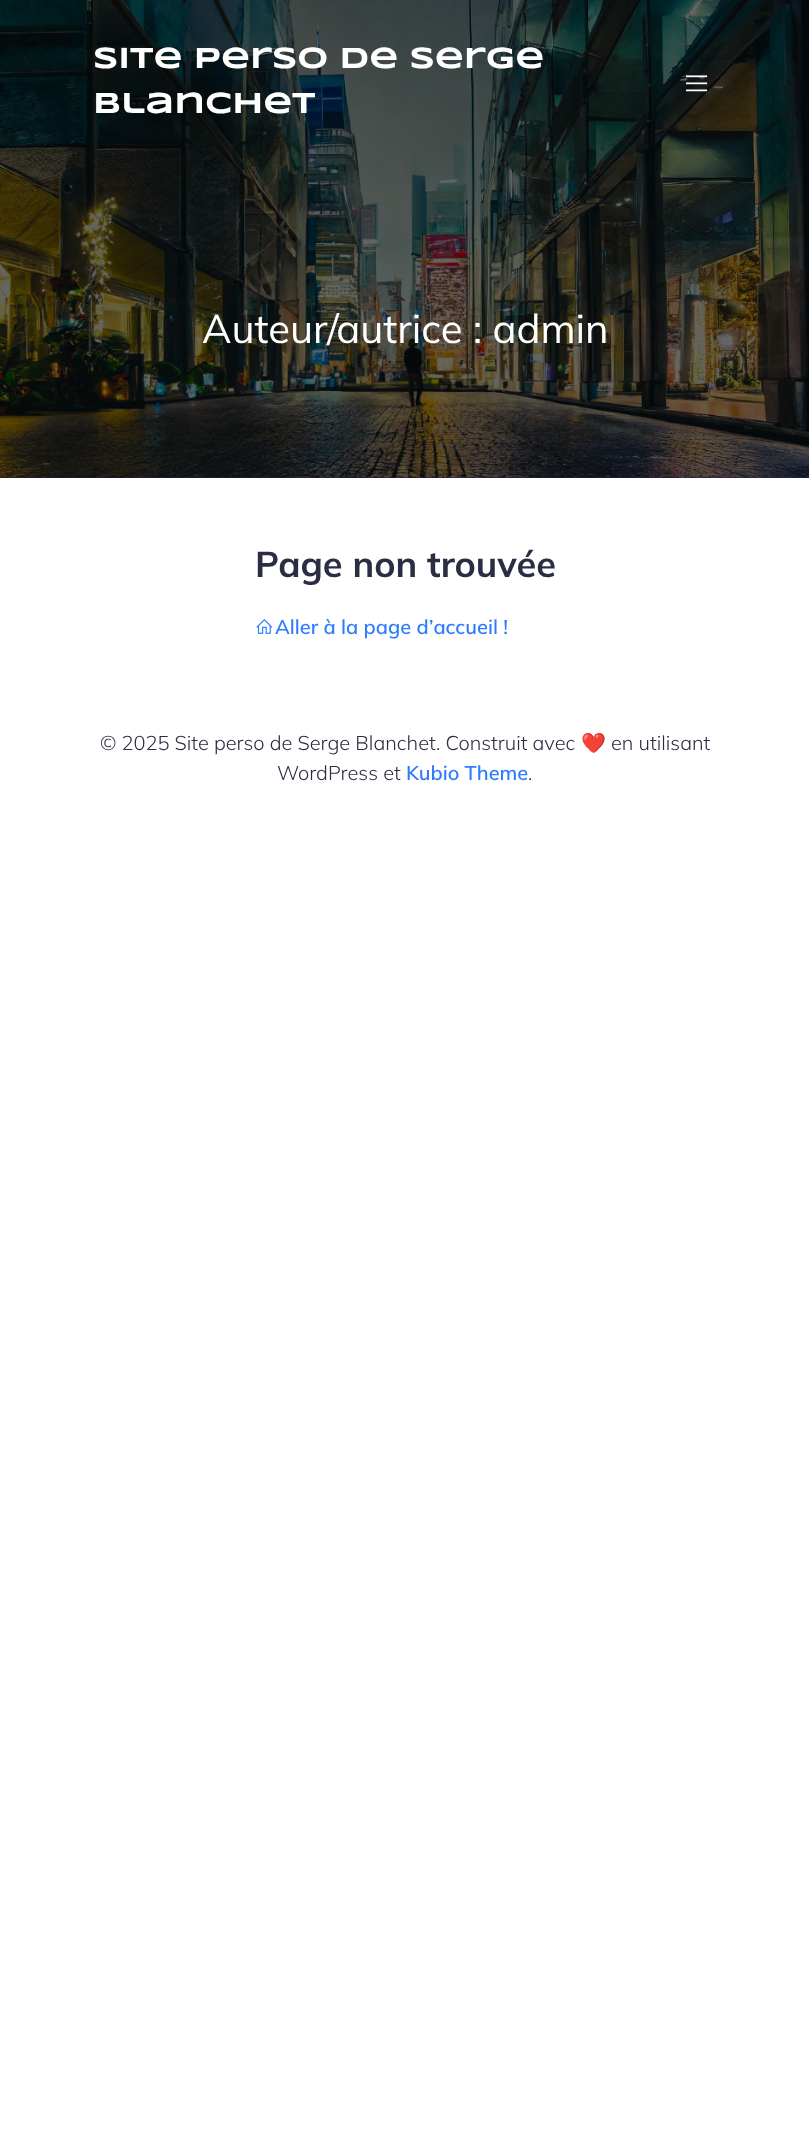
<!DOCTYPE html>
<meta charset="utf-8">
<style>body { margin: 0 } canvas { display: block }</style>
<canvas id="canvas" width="809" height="2146"></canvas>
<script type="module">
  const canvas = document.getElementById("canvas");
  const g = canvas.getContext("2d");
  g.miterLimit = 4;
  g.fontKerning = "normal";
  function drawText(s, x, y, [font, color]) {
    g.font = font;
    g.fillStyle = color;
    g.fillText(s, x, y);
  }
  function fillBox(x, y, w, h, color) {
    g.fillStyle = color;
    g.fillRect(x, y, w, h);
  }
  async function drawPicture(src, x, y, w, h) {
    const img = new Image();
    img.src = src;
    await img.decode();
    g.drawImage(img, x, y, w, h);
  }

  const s1 = ["bold 30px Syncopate", "#FFFFFF"];
  const s2 = ["40px Mulish", "#FFFFFF"];
  const s3 = ["bold 36px Mulish", "#2B2D42"];
  const s4 = ["600 20px Mulish", "#2F7CFF"];
  const s5 = ["300 20px Mulish", "#2B2D42"];
  const s6 = ["20px Noto Color Emoji", "#2B2D42"];

  fillBox(0, 0, 809, 2146, "#FFFFFF");
  fillBox(0, 477, 809, 1, "#29215D");
  await drawPicture("pic2.png", 0, 0, 809, 478);
  drawText("Site perso de Serge", 93, 68, s1);
  drawText("Blanchet", 93, 113, s1);
  await drawPicture("pic1.png", 686, 75, 22, 17);
  drawText("Auteur/autrice : admin", 202, 343, s2);
  drawText("Page non trouvée", 255, 577, s3);
  await drawPicture("pic3.png", 256, 619, 17, 15);
  drawText("Aller à la page d’accueil !", 275, 634, s4);
  drawText("© 2025 Site perso de Serge Blanchet. Construit avec", 100, 750, s5);
  drawText("❤️", 581, 750, s6);
  drawText("en utilisant", 611, 750, s5);
  drawText("WordPress et", 277, 780, s5);
  drawText("Kubio Theme", 406, 780, s4);
  drawText(".", 528, 780, s5);
</script>
